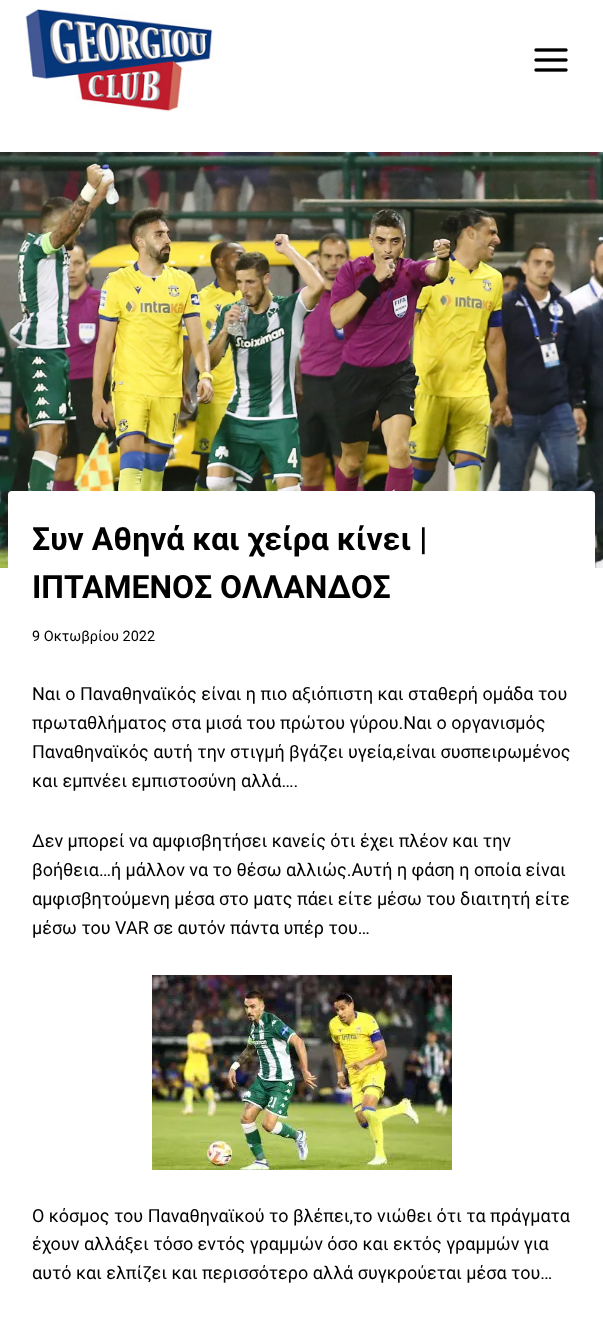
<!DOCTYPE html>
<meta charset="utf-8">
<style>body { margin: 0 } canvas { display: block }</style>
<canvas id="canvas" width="603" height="1327"></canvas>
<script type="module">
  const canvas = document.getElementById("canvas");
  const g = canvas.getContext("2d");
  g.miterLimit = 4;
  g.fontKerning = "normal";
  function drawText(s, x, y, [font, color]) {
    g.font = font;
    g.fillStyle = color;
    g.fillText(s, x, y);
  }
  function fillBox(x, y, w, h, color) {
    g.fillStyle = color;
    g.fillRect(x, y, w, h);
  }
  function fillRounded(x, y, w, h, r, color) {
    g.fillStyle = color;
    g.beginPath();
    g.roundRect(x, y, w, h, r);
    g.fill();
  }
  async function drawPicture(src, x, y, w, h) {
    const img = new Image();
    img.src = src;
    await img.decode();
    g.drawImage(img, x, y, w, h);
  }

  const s1 = ["bold 32px Roboto", "#000000"];
  const s2 = ["14.5px Roboto", "#000000"];
  const s3 = ["18px Roboto", "#000000"];

  fillBox(0, 0, 603, 1327, "#FFFFFF");
  await drawPicture("pic1.png", 25, 8, 189, 104);
  await drawPicture("pic2.png", 534, 48, 34, 24);
  await drawPicture("pic3.png", 0, 152, 603, 416);
  fillRounded(8, 491, 587, 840, 4, "#FFFFFF");
  drawText("Συν Αθηνά και χείρα κίνει |", 32, 550, s1);
  drawText("ΙΠΤΑΜΕΝΟΣ ΟΛΛΑΝΔΟΣ", 32, 598, s1);
  drawText("9 Οκτωβρίου 2022", 32, 641, s2);
  drawText("Ναι ο Παναθηναϊκός είναι η πιο αξιόπιστη και σταθερή ομάδα του", 32, 700, s3);
  drawText("πρωταθλήματος στα μισά του πρώτου γύρου.Ναι ο οργανισμός", 32, 729, s3);
  drawText("Παναθηναϊκός αυτή την στιγμή βγάζει υγεία,είναι συσπειρωμένος", 32, 758, s3);
  drawText("και εμπνέει εμπιστοσύνη αλλά….", 32, 787, s3);
  drawText("Δεν μπορεί να αμφισβητήσει κανείς ότι έχει πλέον και την", 32, 847, s3);
  drawText("βοήθεια…ή μάλλον να το θέσω αλλιώς.Αυτή η φάση η οποία είναι", 32, 876, s3);
  drawText("αμφισβητούμενη μέσα στο ματς πάει είτε μέσω του διαιτητή είτε", 32, 905, s3);
  drawText("μέσω του VAR σε αυτόν πάντα υπέρ του…", 32, 934, s3);
  await drawPicture("pic4.png", 152, 975, 300, 195);
  drawText("Ο κόσμος του Παναθηναϊκού το βλέπει,το νιώθει ότι τα πράγματα", 32, 1222, s3);
  drawText("έχουν αλλάξει τόσο εντός γραμμών όσο και εκτός γραμμών για", 32, 1250, s3);
  drawText("αυτό και ελπίζει και περισσότερο αλλά συγκρούεται μέσα του…", 32, 1279, s3);
</script>
